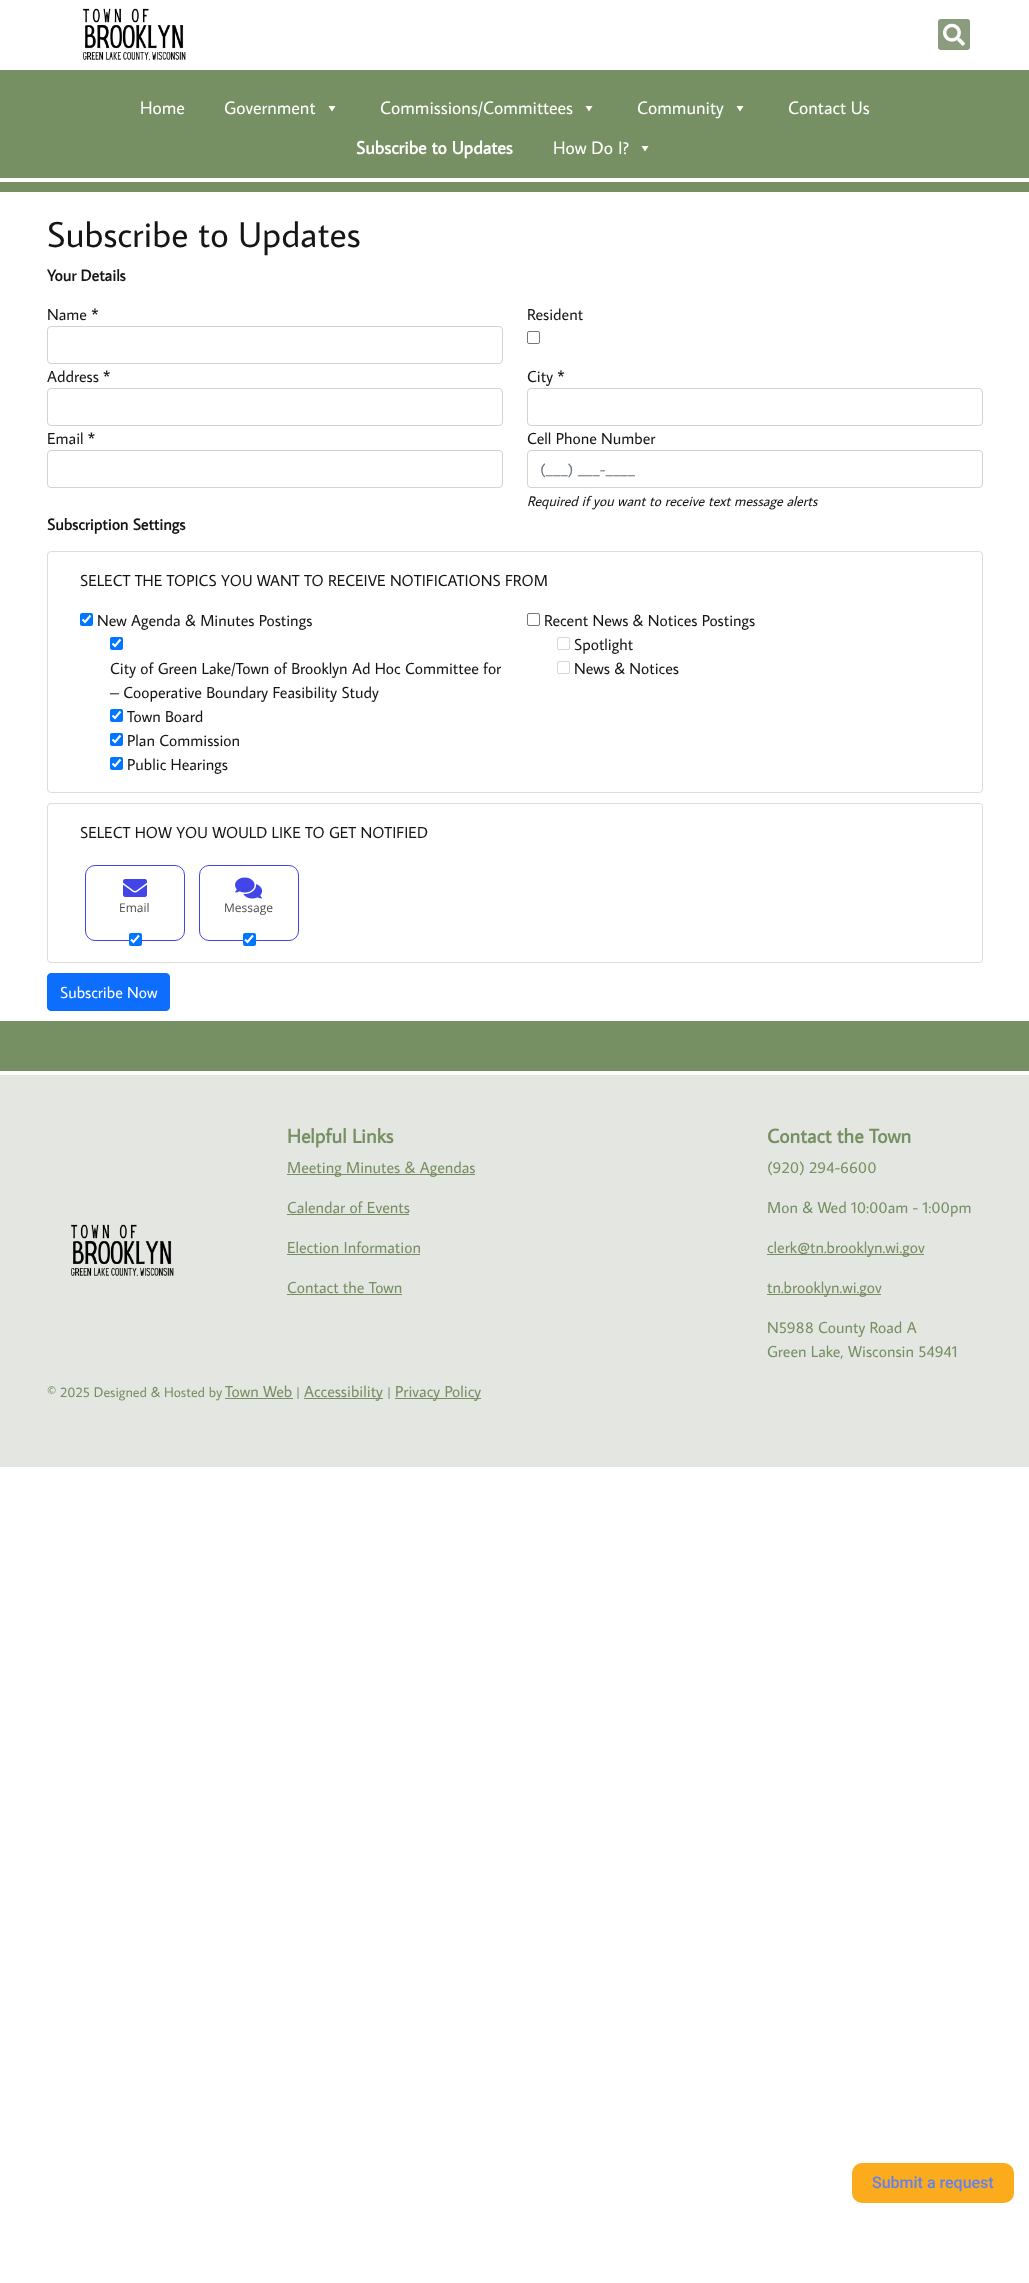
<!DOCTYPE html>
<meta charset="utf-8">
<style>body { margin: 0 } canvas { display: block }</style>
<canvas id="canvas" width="1029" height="2283"></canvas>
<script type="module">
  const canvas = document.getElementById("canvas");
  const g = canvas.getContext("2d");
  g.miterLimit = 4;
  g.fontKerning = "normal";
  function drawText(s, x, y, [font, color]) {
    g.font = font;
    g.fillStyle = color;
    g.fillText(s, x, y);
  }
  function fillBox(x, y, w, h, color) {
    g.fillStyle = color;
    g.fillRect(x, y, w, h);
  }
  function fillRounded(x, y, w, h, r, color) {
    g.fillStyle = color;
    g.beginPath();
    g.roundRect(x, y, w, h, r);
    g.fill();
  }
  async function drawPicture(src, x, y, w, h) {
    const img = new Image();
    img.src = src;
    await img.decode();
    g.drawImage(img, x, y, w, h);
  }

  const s1 = ["18px Average Sans", "#FFFFFF"];
  const s2 = ["bold 18px Average Sans", "#FFFFFF"];
  const s3 = ["36px Average Sans", "#171616"];
  const s4 = ["bold 16px Average Sans", "#171616"];
  const s5 = ["16px Average Sans", "#171616"];
  const s6 = ["16px Average Sans", "#6C757D"];
  const s7 = ["italic 14px Average Sans", "#171616"];
  const s8 = ["12px Open Sans", "#4C4C4C"];
  const s9 = ["16px Average Sans", "#FFFFFF"];
  const s10 = ["bold 20px Average Sans", "#769064"];
  const s11 = ["16px Average Sans", "#769064"];
  const s12 = ["14px Average Sans", "#769064"];
  const s13 = ["500 16px Roboto", "#5E81F4"];

  fillBox(0, 0, 1029, 2283, "#FFFFFF");
  fillBox(0, 70, 1029, 122, "#769064");
  await drawPicture("pic1.png", 83, 8, 103, 53);
  fillRounded(938, 19, 32, 31, 3, "#8B9C7E");
  await drawPicture("pic2.png", 943, 23, 22, 23);
  drawText("Home", 140, 114, s1);
  drawText("Government", 224, 114, s1);
  g.beginPath();
  g.moveTo(335.5, 106);
  g.lineTo(332, 111.5);
  g.lineTo(328.5, 106);
  g.closePath();
  g.fill();
  drawText("Commissions/Committees", 380, 114, s1);
  g.beginPath();
  g.moveTo(592.5, 106);
  g.lineTo(589, 111.5);
  g.lineTo(585.5, 106);
  g.closePath();
  g.fill();
  drawText("Community", 637, 114, s1);
  g.beginPath();
  g.moveTo(743.5, 106);
  g.lineTo(740, 111.5);
  g.lineTo(736.5, 106);
  g.closePath();
  g.fill();
  drawText("Contact Us", 788, 114, s1);
  drawText("Subscribe to Updates", 356, 154, s2);
  drawText("How Do I?", 553, 154, s1);
  g.beginPath();
  g.moveTo(648.5, 146);
  g.lineTo(645, 151.5);
  g.lineTo(641.5, 146);
  g.closePath();
  g.fill();
  fillBox(0, 178, 1029, 4, "#FFFFFF");
  drawText("Subscribe to Updates", 47, 247, s3);
  drawText("Your Details", 47, 281, s4);
  drawText("Name *", 47, 320, s5);
  g.beginPath();
  g.roundRect(47.5, 326.5, 455, 37, 3.5);
  g.strokeStyle = "#CED4DA";
  g.stroke();
  drawText("Resident", 527, 320, s5);
  g.beginPath();
  g.roundRect(527.5, 331.5, 12, 12, 1.5);
  g.strokeStyle = "#767676";
  g.stroke();
  drawText("Address *", 47, 382, s5);
  g.beginPath();
  g.roundRect(47.5, 388.5, 455, 37, 3.5);
  g.strokeStyle = "#CED4DA";
  g.stroke();
  drawText("City *", 527, 382, s5);
  g.beginPath();
  g.roundRect(527.5, 388.5, 455, 37, 3.5);
  g.stroke();
  drawText("Email *", 47, 444, s5);
  g.beginPath();
  g.roundRect(47.5, 450.5, 455, 37, 3.5);
  g.stroke();
  drawText("Cell Phone Number", 527, 444, s5);
  g.beginPath();
  g.roundRect(527.5, 450.5, 455, 37, 3.5);
  g.stroke();
  drawText("(___) ___-____", 540, 475, s6);
  drawText("Required if you want to receive text message alerts", 527, 506, s7);
  drawText("Subscription Settings", 47, 530, s4);
  g.beginPath();
  g.roundRect(47.5, 551.5, 935, 241, 3.5);
  g.strokeStyle = "#DDDDDD";
  g.stroke();
  drawText("SELECT THE TOPICS YOU WANT TO RECEIVE NOTIFICATIONS FROM", 80, 586, s5);
  fillRounded(80, 613, 13, 13, 2, "#0075FF");
  g.beginPath();
  g.moveTo(82.5, 619.5);
  g.lineTo(85, 622);
  g.lineTo(90.5, 615.5);
  g.strokeStyle = "#FFFFFF";
  g.lineWidth = 2.1;
  g.stroke();
  drawText("New Agenda & Minutes Postings", 97, 626, s5);
  fillRounded(110, 637, 13, 13, 2, "#0075FF");
  g.beginPath();
  g.moveTo(112.5, 643.5);
  g.lineTo(115, 646);
  g.lineTo(120.5, 639.5);
  g.stroke();
  drawText("City of Green Lake/Town of Brooklyn Ad Hoc Committee for", 110, 674, s5);
  drawText("– Cooperative Boundary Feasibility Study", 110, 698, s5);
  fillRounded(110, 709, 13, 13, 2, "#0075FF");
  g.beginPath();
  g.moveTo(112.5, 715.5);
  g.lineTo(115, 718);
  g.lineTo(120.5, 711.5);
  g.stroke();
  drawText("Town Board", 127, 722, s5);
  fillRounded(110, 733, 13, 13, 2, "#0075FF");
  g.beginPath();
  g.moveTo(112.5, 739.5);
  g.lineTo(115, 742);
  g.lineTo(120.5, 735.5);
  g.stroke();
  drawText("Plan Commission", 127, 746, s5);
  fillRounded(110, 757, 13, 13, 2, "#0075FF");
  g.beginPath();
  g.moveTo(112.5, 763.5);
  g.lineTo(115, 766);
  g.lineTo(120.5, 759.5);
  g.stroke();
  drawText("Public Hearings", 127, 770, s5);
  g.beginPath();
  g.roundRect(527.5, 613.5, 12, 12, 1.5);
  g.strokeStyle = "#767676";
  g.lineWidth = 1;
  g.stroke();
  drawText("Recent News & Notices Postings", 544, 626, s5);
  g.beginPath();
  g.roundRect(557.5, 637.5, 12, 12, 1.5);
  g.strokeStyle = "#D6D6D6";
  g.stroke();
  drawText("Spotlight", 574, 650, s5);
  g.beginPath();
  g.roundRect(557.5, 661.5, 12, 12, 1.5);
  g.stroke();
  drawText("News & Notices", 574, 674, s5);
  g.beginPath();
  g.roundRect(47.5, 803.5, 935, 159, 3.5);
  g.strokeStyle = "#DDDDDD";
  g.stroke();
  drawText("SELECT HOW YOU WOULD LIKE TO GET NOTIFIED", 80, 838, s5);
  g.beginPath();
  g.roundRect(85.5, 865.5, 99, 75, 9.5);
  g.strokeStyle = "#4245E7";
  g.stroke();
  await drawPicture("pic3.png", 123, 879, 24, 18);
  drawText("Email", 119, 912, s8);
  fillRounded(129, 933, 13, 13, 2, "#0075FF");
  g.beginPath();
  g.moveTo(131, 939.5);
  g.lineTo(133.5, 942);
  g.lineTo(139, 935.5);
  g.strokeStyle = "#FFFFFF";
  g.lineWidth = 2.1;
  g.stroke();
  g.beginPath();
  g.roundRect(199.5, 865.5, 99, 75, 9.5);
  g.strokeStyle = "#4245E7";
  g.lineWidth = 1;
  g.stroke();
  await drawPicture("pic4.png", 235, 877, 27, 22);
  drawText("Message", 224, 912, s8);
  fillRounded(243, 933, 13, 13, 2, "#0075FF");
  g.beginPath();
  g.moveTo(245, 939.5);
  g.lineTo(247.5, 942);
  g.lineTo(253, 935.5);
  g.strokeStyle = "#FFFFFF";
  g.lineWidth = 2.1;
  g.stroke();
  g.fillStyle = "#0D6EFD";
  g.beginPath();
  g.roundRect(47.5, 973.5, 122, 37, 3.5);
  g.fill();
  g.strokeStyle = "#0D6EFD";
  g.lineWidth = 1;
  g.stroke();
  drawText("Subscribe Now", 60, 998, s9);
  fillBox(0, 1075, 1029, 392, "#E4E7E1");
  fillBox(0, 1021, 1029, 50, "#769064");
  await drawPicture("pic5.png", 71, 1224, 103, 53);
  drawText("Helpful Links", 287, 1143, s10);
  fillBox(287, 1174, 188, 1, "#769064");
  drawText("Meeting Minutes & Agendas", 287, 1173, s11);
  drawText("Calendar of Events", 287, 1213, s11);
  fillBox(287, 1214, 122, 1, "#769064");
  drawText("Election Information", 287, 1253, s11);
  fillBox(287, 1254, 133, 1, "#769064");
  drawText("Contact the Town", 287, 1293, s11);
  fillBox(287, 1294, 115, 1, "#769064");
  drawText("Contact the Town", 767, 1143, s10);
  drawText("(920) 294-6600", 767, 1173, s11);
  drawText("Mon & Wed 10:00am - 1:00pm", 767, 1213, s11);
  fillBox(767, 1254, 157, 1, "#769064");
  drawText("clerk@tn.brooklyn.wi.gov", 767, 1253, s11);
  fillBox(767, 1294, 114, 1, "#769064");
  drawText("tn.brooklyn.wi.gov", 767, 1293, s11);
  drawText("N5988 County Road A", 767, 1333, s11);
  drawText("Green Lake, Wisconsin 54941", 767, 1357, s11);
  drawText("© 2025 Designed & Hosted by", 47, 1397, s12);
  drawText("Town Web", 225, 1397, s11);
  fillBox(225, 1398, 68, 1, "#769064");
  drawText("|", 296, 1397, s12);
  fillBox(304, 1398, 79, 1, "#769064");
  drawText("Accessibility", 304, 1397, s11);
  drawText("|", 387, 1397, s12);
  fillBox(395, 1398, 86, 1, "#769064");
  drawText("Privacy Policy", 395, 1397, s11);
  fillRounded(852, 2163, 162, 40, 10, "#FCAB1C");
  drawText("Submit a request", 872, 2188, s13);
</script>
